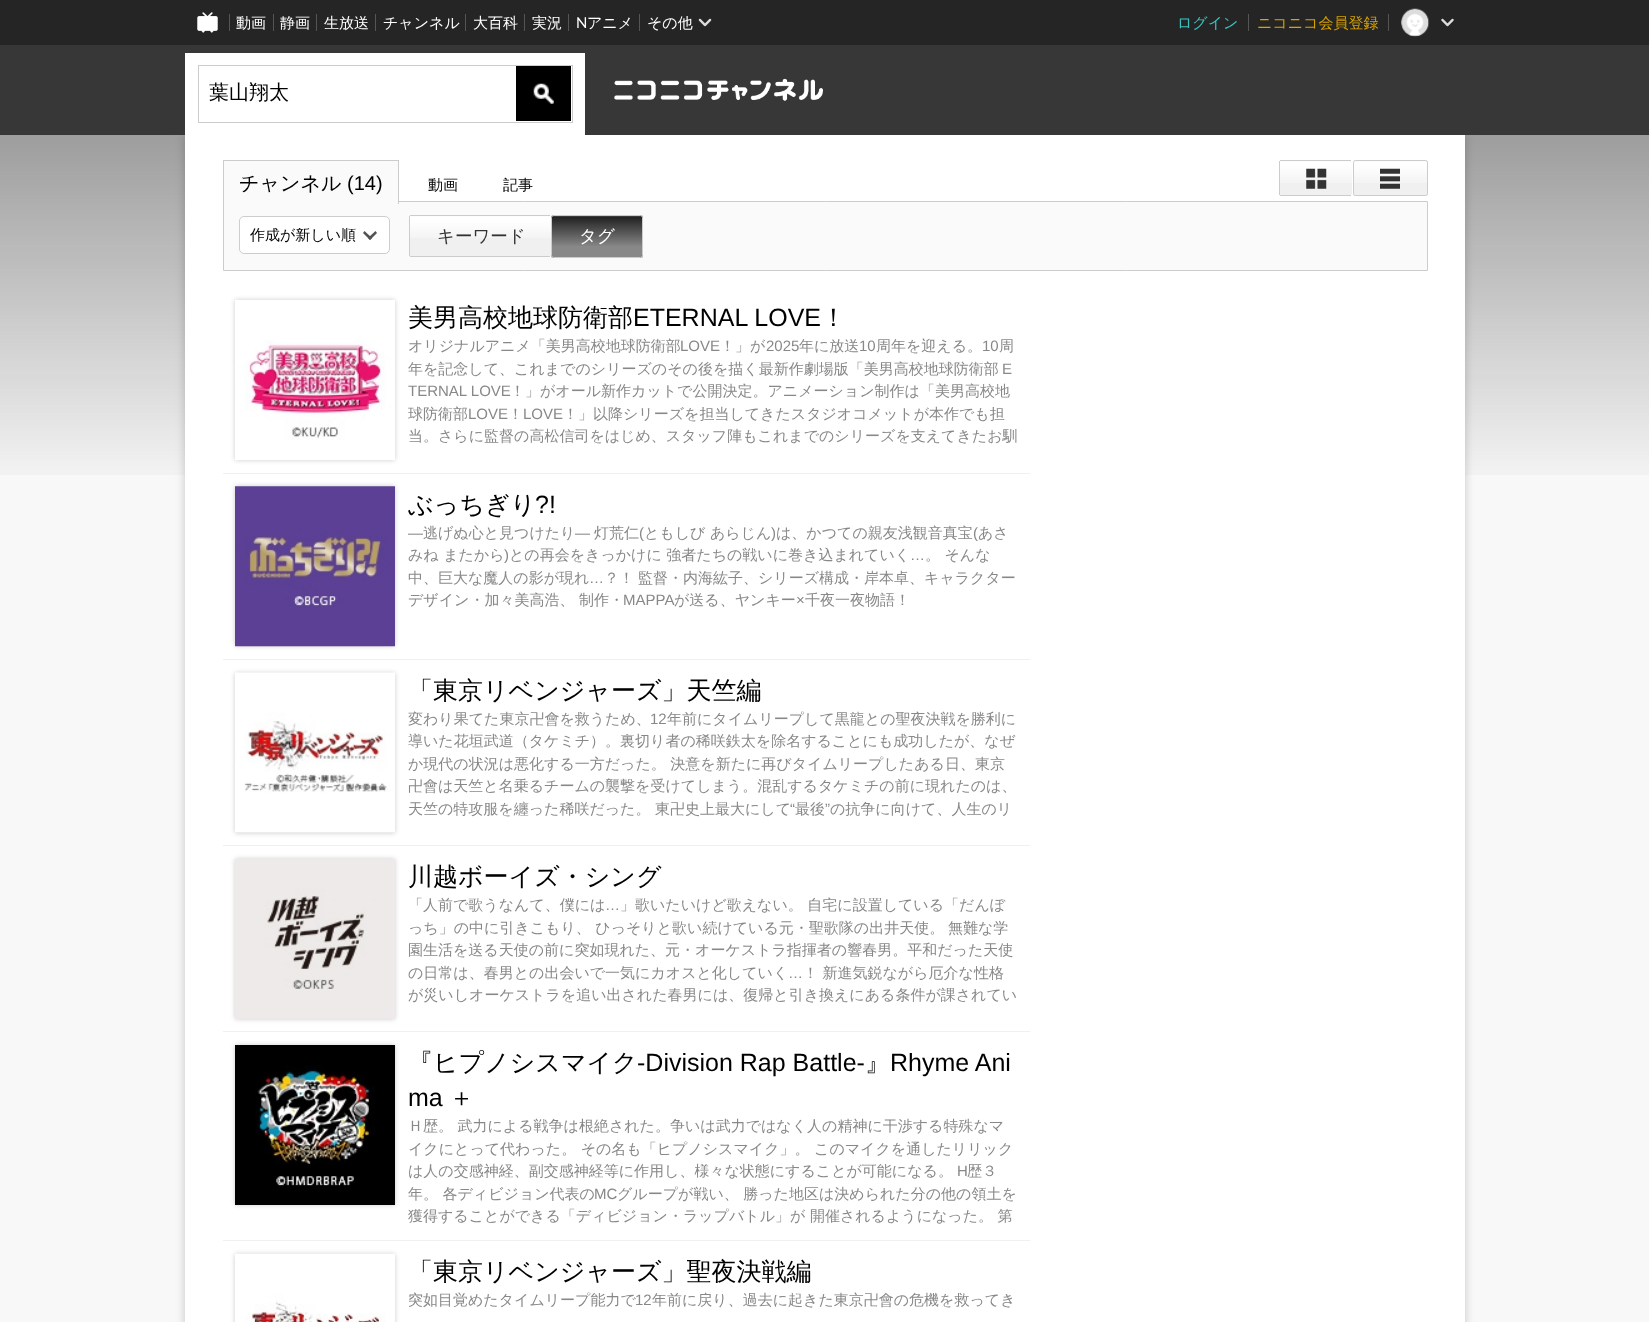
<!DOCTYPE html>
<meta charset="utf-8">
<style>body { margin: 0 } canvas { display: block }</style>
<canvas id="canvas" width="1649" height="1322"></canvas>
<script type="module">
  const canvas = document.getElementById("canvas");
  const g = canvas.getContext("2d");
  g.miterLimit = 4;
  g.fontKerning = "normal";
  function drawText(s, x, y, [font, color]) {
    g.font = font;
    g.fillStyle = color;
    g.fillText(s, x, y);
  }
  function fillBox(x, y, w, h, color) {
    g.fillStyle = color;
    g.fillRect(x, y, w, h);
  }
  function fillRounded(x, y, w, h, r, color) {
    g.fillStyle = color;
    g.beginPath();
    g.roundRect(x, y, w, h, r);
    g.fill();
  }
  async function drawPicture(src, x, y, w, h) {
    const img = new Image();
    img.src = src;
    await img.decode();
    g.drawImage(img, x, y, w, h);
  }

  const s1 = ["500 15px WenQuanYi Zen Hei", "#FFFFFF"];
  const s2 = ["15px Lato", "#FFFFFF"];
  const s3 = ["500 15px WenQuanYi Zen Hei", "#39C4C1"];
  const s4 = ["500 15px WenQuanYi Zen Hei", "#D9A300"];
  const s5 = ["500 20px WenQuanYi Zen Hei", "#000000"];
  const s6 = ["20px Liberation Sans", "#000000"];
  const s7 = ["500 15px WenQuanYi Zen Hei", "#000000"];
  const s8 = ["500 17.5px WenQuanYi Zen Hei", "#333333"];
  const s9 = ["500 17.5px WenQuanYi Zen Hei", "#FFFFFF"];
  const s10 = ["500 25px WenQuanYi Zen Hei", "#000000"];
  const s11 = ["25px Liberation Sans", "#000000"];
  const s12 = ["500 15px WenQuanYi Zen Hei", "#888888"];
  const s13 = ["15px Liberation Sans", "#888888"];

  fillBox(0, 0, 1649, 1322, "#F8F8F8");
  await drawPicture("pic1.png", 0, 135, 1649, 340);
  fillBox(0, 0, 1649, 45, "#252525");
  await drawPicture("pic2.png", 197, 12, 21, 21);
  fillBox(229, 14, 1, 17, "#555555");
  drawText("動画", 236, 28, s1);
  fillBox(273, 14, 1, 17, "#555555");
  drawText("静画", 280, 28, s1);
  fillBox(316, 14, 1, 17, "#555555");
  drawText("生放送", 324, 28, s1);
  fillBox(375, 14, 1, 17, "#555555");
  drawText("チャンネル", 383, 28, s1);
  fillBox(465, 14, 1, 17, "#555555");
  drawText("大百科", 473, 28, s1);
  fillBox(524, 14, 1, 17, "#555555");
  drawText("実況", 532, 28, s1);
  fillBox(568, 14, 1, 17, "#555555");
  drawText("N", 576, 28, s2);
  drawText("アニメ", 587, 28, s1);
  fillBox(639, 14, 1, 17, "#555555");
  drawText("その他", 647, 28, s1);
  await drawPicture("pic3.png", 698, 18, 14, 9);
  drawText("ログイン", 1177, 28, s3);
  fillBox(1248, 14, 1, 17, "#555555");
  drawText("ニコニコ会員登録", 1257, 28, s4);
  fillBox(1388, 14, 1, 17, "#555555");
  await drawPicture("pic4.png", 1401, 8, 29, 29);
  await drawPicture("pic5.png", 1441, 18, 13, 9);
  g.fillStyle = "rgba(0, 0, 0, 0.2)";
  g.filter = "blur(5px)";
  g.beginPath();
  g.rect(185, 135, 1280, 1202);
  g.fill();
  g.filter = "none";
  fillBox(0, 45, 1649, 90, "#373737");
  fillBox(185, 53, 400, 82, "#FFFFFF");
  g.strokeStyle = "#CCCCCC";
  g.strokeRect(198.5, 65.5, 374, 57);
  drawText("葉山翔太", 209, 99, s5);
  fillBox(516, 66, 55, 55, "#000000");
  await drawPicture("pic6.png", 533, 83, 21, 21);
  await drawPicture("pic7.png", 614, 78, 209, 23);
  fillBox(185, 135, 1280, 1187, "#FFFFFF");
  g.fillStyle = "#FAFAFA";
  g.beginPath();
  g.rect(223.5, 201.5, 1204, 69);
  g.fill();
  g.stroke();
  fillBox(224, 161, 174, 41, "#FAFAFA");
  fillBox(223, 160, 176, 1, "#CCCCCC");
  fillBox(398, 160, 1, 44, "#CCCCCC");
  fillBox(223, 160, 1, 44, "#CCCCCC");
  drawText("チャンネル", 239, 190, s5);
  drawText("(14)", 347, 190, s6);
  drawText("動画", 428, 190, s7);
  drawText("記事", 503, 190, s7);
  g.fillStyle = "#F0F0F0";
  g.beginPath();
  g.moveTo(1281, 161);
  g.lineTo(1350, 161);
  g.bezierCurveTo(1351, 161, 1352, 162, 1352, 162);
  g.lineTo(1352, 194);
  g.bezierCurveTo(1352, 194, 1351, 195, 1350, 195);
  g.lineTo(1281, 195);
  g.bezierCurveTo(1281, 195, 1280, 194, 1280, 194);
  g.lineTo(1280, 162);
  g.bezierCurveTo(1280, 162, 1281, 161, 1281, 161);
  g.closePath();
  g.fill();
  await drawPicture("pic8.png", 1280, 161, 72, 22);
  fillBox(1280, 160, 71, 1, "#CCCCCC");
  fillBox(1280, 195, 71, 1, "#CCCCCC");
  fillBox(1279, 161, 1, 34, "#CCCCCC");
  await drawPicture("pic9.png", 1306, 168, 21, 21);
  fillRounded(1353, 160, 75, 36, 2.5, "#F0F0F0");
  await drawPicture("pic10.png", 1353, 161, 74, 22);
  g.beginPath();
  g.roundRect(1353.5, 160.5, 74, 35, 2);
  g.stroke();
  await drawPicture("pic11.png", 1380, 168, 20, 21);
  g.fillStyle = "#FFFFFF";
  g.beginPath();
  g.roundRect(239.5, 216.5, 150, 37, 4.5);
  g.fill();
  g.strokeStyle = "#CDCDCD";
  g.stroke();
  g.save();
  g.beginPath();
  g.rect(250, 228, 106, 15);
  g.clip();
  drawText("作成が新しい順", 250, 240, s7);
  g.restore();
  g.fillStyle = "#525252";
  g.beginPath();
  g.moveTo(375.5, 231);
  g.lineTo(377, 233);
  g.lineTo(370, 240);
  g.lineTo(368, 238);
  g.closePath();
  g.fill();
  g.beginPath();
  g.moveTo(364.5, 231);
  g.lineTo(372, 238);
  g.lineTo(370, 240);
  g.lineTo(363, 233);
  g.closePath();
  g.fill();
  g.fillStyle = "#F0F0F0";
  g.beginPath();
  g.moveTo(411, 216);
  g.lineTo(549, 216);
  g.bezierCurveTo(550, 216, 551, 217, 551, 218);
  g.lineTo(551, 255);
  g.bezierCurveTo(551, 256, 550, 256, 549, 256);
  g.lineTo(411, 256);
  g.bezierCurveTo(411, 256, 410, 256, 410, 255);
  g.lineTo(410, 218);
  g.bezierCurveTo(410, 217, 411, 216, 411, 216);
  g.closePath();
  g.fill();
  await drawPicture("pic12.png", 410, 216, 141, 22);
  fillBox(410, 215, 140, 1, "#CCCCCC");
  fillBox(410, 256, 140, 1, "#CCCCCC");
  fillBox(409, 216, 1, 40, "#CCCCCC");
  drawText("キーワード", 437, 242, s8);
  fillRounded(551, 215, 92, 43, 2.5, "#888888");
  await drawPicture("pic13.png", 551, 216, 92, 30);
  g.beginPath();
  g.roundRect(551.5, 215.5, 91, 42, 2);
  g.strokeStyle = "#CCCCCC";
  g.stroke();
  drawText("タグ", 579, 242, s9);
  fillBox(223, 473, 807, 1, "#F0F0F0");
  g.fillStyle = "rgba(0, 0, 0, 0.2)";
  g.filter = "blur(2.5px)";
  g.beginPath();
  g.rect(235, 300, 160, 160);
  g.fill();
  g.filter = "none";
  await drawPicture("pic14.png", 235, 300, 160, 160);
  drawText("美男高校地球防衛部", 408, 326, s10);
  drawText("ETERNAL LOVE", 633, 326, s11);
  drawText("！", 821, 326, s10);
  drawText("オリジナルアニメ「美男高校地球防衛部", 408, 351, s12);
  drawText("LOVE", 680, 351, s13);
  drawText("！」が", 720, 351, s12);
  drawText("2025", 766, 351, s13);
  drawText("年に放送", 799, 351, s12);
  drawText("10", 859, 351, s13);
  drawText("周年を迎える。", 876, 351, s12);
  drawText("10", 982, 351, s13);
  drawText("周", 999, 351, s12);
  drawText("年を記念して、これまでのシリーズのその後を描く最新作劇場版「美男高校地球防衛部", 408, 374, s12);
  drawText("E", 1002, 374, s13);
  drawText("TERNAL LOVE", 408, 396, s13);
  drawText("！」がオール新作カットで公開決定。アニメーション制作は「美男高校地", 510, 396, s12);
  g.save();
  g.beginPath();
  g.rect(408, 335, 610, 113);
  g.clip();
  drawText("球防衛部", 408, 419, s12);
  g.restore();
  drawText("LOVE", 468, 419, s13);
  drawText("！", 508, 419, s12);
  drawText("LOVE", 523, 419, s13);
  drawText("！」以降シリーズを担当してきたスタジオコメットが本作でも担", 563, 419, s12);
  drawText("当。さらに監督の高松信司をはじめ、スタッフ陣もこれまでのシリーズを支えてきたお馴", 408, 441, s12);
  fillBox(223, 659, 807, 1, "#F0F0F0");
  g.fillStyle = "rgba(0, 0, 0, 0.2)";
  g.filter = "blur(2.5px)";
  g.beginPath();
  g.rect(235, 486, 160, 160);
  g.fill();
  g.filter = "none";
  await drawPicture("pic15.png", 235, 486, 160, 161);
  drawText("ぶっちぎり", 408, 513, s10);
  drawText("?!", 535, 513, s11);
  drawText("―", 408, 538, s13);
  drawText("逃げぬ心と見つけたり", 423, 538, s12);
  drawText("―", 575, 538, s13);
  drawText("灯荒仁", 594, 538, s12);
  drawText("(", 639, 538, s13);
  drawText("ともしび あらじん", 644, 538, s12);
  drawText(")", 771, 538, s13);
  drawText("は、かつての親友浅観音真宝", 776, 538, s12);
  drawText("(", 973, 538, s13);
  drawText("あさ", 978, 538, s12);
  drawText("みね またから", 408, 560, s12);
  drawText(")", 504, 560, s13);
  drawText("との再会をきっかけに 強者たちの戦いに巻き込まれていく", 509, 560, s12);
  drawText("…", 910, 560, s13);
  drawText("。 そんな", 925, 560, s12);
  drawText("中、巨大な魔人の影が現れ", 408, 583, s12);
  drawText("…", 589, 583, s13);
  drawText("？！", 604, 583, s12);
  drawText("監督・内海紘子、シリーズ構成・岸本卓、キャラクター", 638, 583, s12);
  drawText("デザイン・加々美高浩、 制作・", 408, 605, s12);
  drawText("MAPPA", 623, 605, s13);
  drawText("が送る、ヤンキー", 674, 605, s12);
  drawText("×", 796, 605, s13);
  drawText("千夜一夜物語！", 805, 605, s12);
  fillBox(223, 845, 807, 1, "#F0F0F0");
  g.fillStyle = "rgba(0, 0, 0, 0.2)";
  g.filter = "blur(2.5px)";
  g.beginPath();
  g.rect(235, 673, 160, 160);
  g.fill();
  g.filter = "none";
  fillBox(235, 832, 160, 1, "rgba(128, 128, 128, 0.1)");
  await drawPicture("pic16.png", 235, 672, 160, 161);
  drawText("「東京リベンジャーズ」天竺編", 408, 699, s10);
  drawText("変わり果てた東京卍會を救うため、", 408, 724, s12);
  drawText("12", 650, 724, s13);
  drawText("年前にタイムリープして黒龍との聖夜決戦を勝利に", 667, 724, s12);
  drawText("導いた花垣武道（タケミチ）。裏切り者の稀咲鉄太を除名することにも成功したが、なぜ", 408, 746, s12);
  drawText("か現代の状況は悪化する一方だった。 決意を新たに再びタイムリープしたある日、東京", 408, 769, s12);
  drawText("卍會は天竺と名乗るチームの襲撃を受けてしまう。混乱するタケミチの前に現れたのは、", 408, 791, s12);
  drawText("天竺の特攻服を纏った稀咲だった。 東卍史上最大にして", 408, 814, s12);
  drawText("“", 790, 814, s13);
  drawText("最後", 795, 814, s12);
  drawText("”", 825, 814, s13);
  drawText("の抗争に向けて、人生のリ", 830, 814, s12);
  fillBox(223, 1031, 807, 1, "#F0F0F0");
  g.fillStyle = "rgba(0, 0, 0, 0.2)";
  g.filter = "blur(2.5px)";
  g.beginPath();
  g.rect(235, 859, 160, 160);
  g.fill();
  g.filter = "none";
  await drawPicture("pic17.png", 235, 859, 160, 160);
  drawText("川越ボーイズ・シング", 408, 885, s10);
  drawText("「人前で歌うなんて、僕には", 408, 910, s12);
  drawText("…", 605, 910, s13);
  drawText("」歌いたいけど歌えない。 自宅に設置している「だんぼ", 620, 910, s12);
  drawText("っち」の中に引きこもり、 ひっそりと歌い続けている元・聖歌隊の出井天使。", 408, 933, s12);
  drawText("無難な学", 948, 933, s12);
  drawText("園生活を送る天使の前に突如現れた、元・オーケストラ指揮者の響春男。平和だった天使", 408, 955, s12);
  drawText("の日常は、春男との出会いで一気にカオスと化していく", 408, 978, s12);
  drawText("…", 788, 978, s13);
  drawText("！ 新進気鋭ながら厄介な性格", 803, 978, s12);
  drawText("が災いしオーケストラを追い出された春男には、復帰と引き換えにある条件が課されてい", 408, 1000, s12);
  fillBox(223, 1240, 807, 1, "#F0F0F0");
  g.fillStyle = "rgba(0, 0, 0, 0.2)";
  g.filter = "blur(2.5px)";
  g.beginPath();
  g.rect(235, 1045, 160, 160);
  g.fill();
  g.filter = "none";
  await drawPicture("pic18.png", 235, 1045, 160, 160);
  drawText("『ヒプノシスマイク", 408, 1071, s10);
  drawText("-Division Rap Battle-", 637, 1071, s11);
  drawText("』", 865, 1071, s10);
  drawText("Rhyme Ani", 890, 1071, s11);
  drawText("ma", 408, 1106, s11);
  drawText("＋", 449, 1106, s10);
  drawText("Ｈ歴。 武力による戦争は根絶された。争いは武力ではなく人の精神に干渉する特殊なマ", 408, 1131, s12);
  drawText("イクにとって代わった。 その名も「ヒプノシスマイク」。 このマイクを通したリリック", 408, 1154, s12);
  drawText("は人の交感神経、副交感神経等に作用し、様々な状態にすることが可能になる。", 408, 1176, s12);
  drawText("H", 957, 1176, s13);
  drawText("歴３", 967, 1176, s12);
  drawText("年。 各ディビジョン代表の", 408, 1199, s12);
  drawText("MC", 594, 1199, s13);
  drawText("グループが戦い、 勝った地区は決められた分の他の領土を", 617, 1199, s12);
  drawText("獲得することができる「ディビジョン・ラップバトル」が 開催されるようになった。 第", 408, 1221, s12);
  g.fillStyle = "rgba(0, 0, 0, 0.2)";
  g.filter = "blur(2.5px)";
  g.beginPath();
  g.rect(235, 1254, 160, 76);
  g.fill();
  g.filter = "none";
  await drawPicture("pic19.png", 235, 1253, 160, 69);
  drawText("「東京リベンジャーズ」聖夜決戦編", 408, 1280, s10);
  drawText("突如目覚めたタイムリープ能力で", 408, 1305, s12);
  drawText("12", 635, 1305, s13);
  drawText("年前に戻り、過去に起きた東京卍會の危機を救ってき", 652, 1305, s12);
</script>
